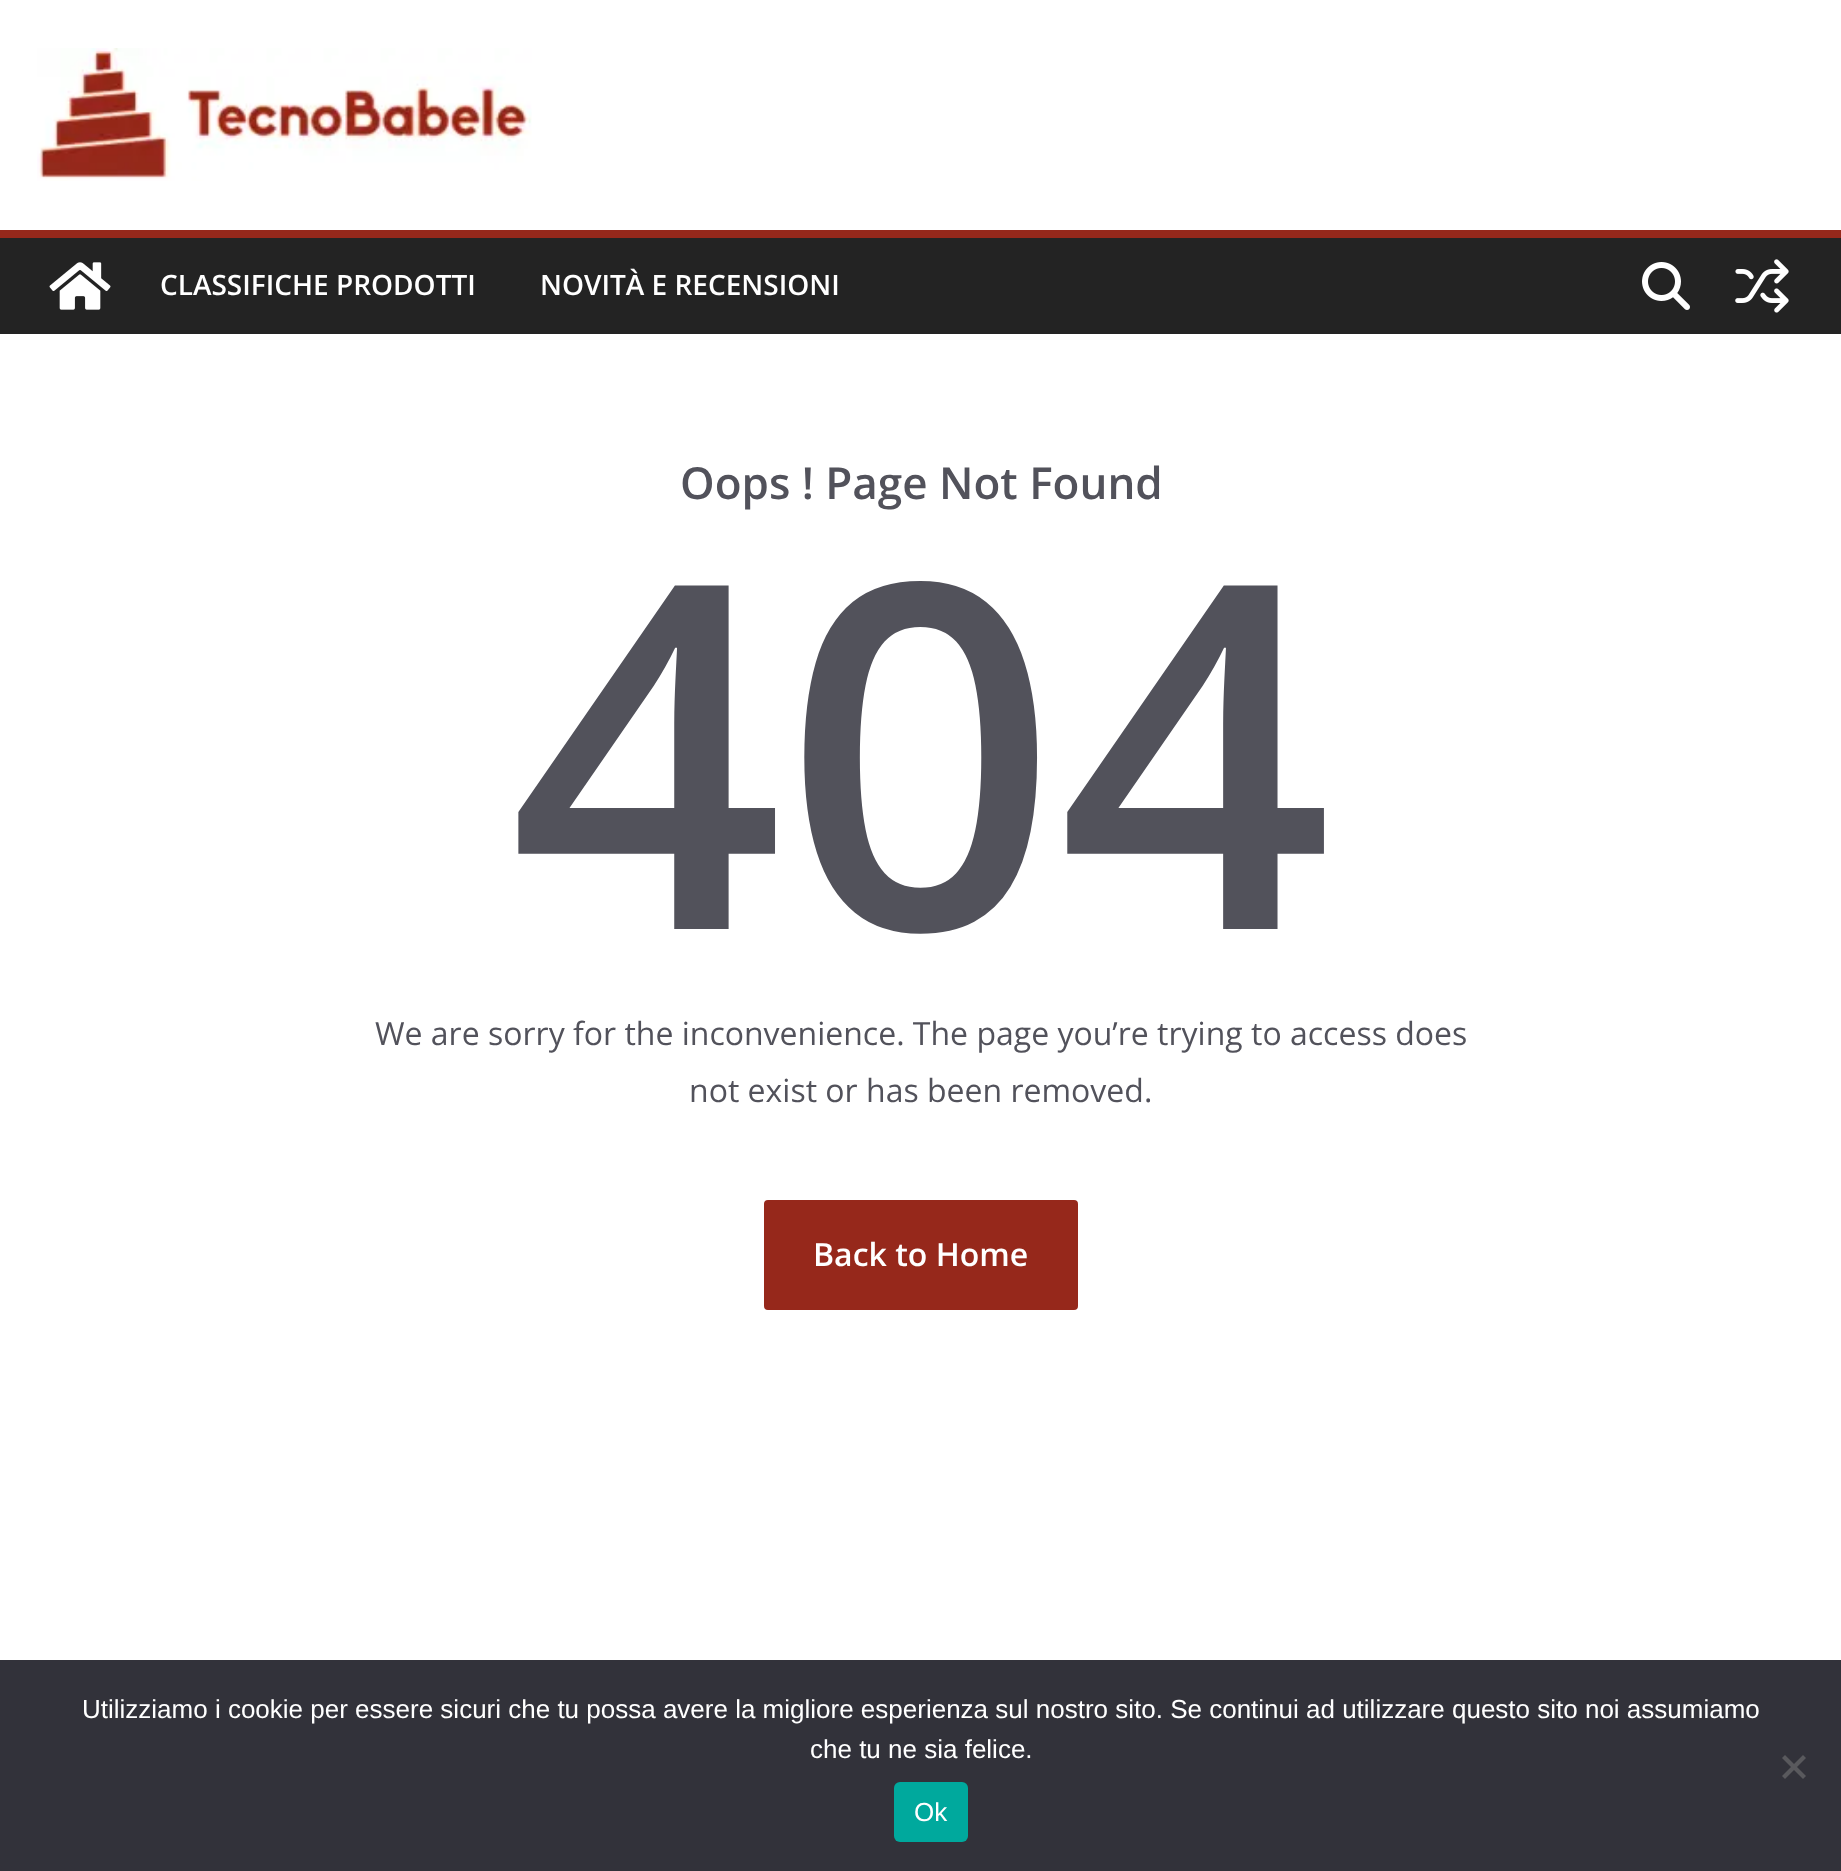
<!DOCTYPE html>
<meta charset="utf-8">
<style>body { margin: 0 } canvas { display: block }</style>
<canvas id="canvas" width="1841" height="1871"></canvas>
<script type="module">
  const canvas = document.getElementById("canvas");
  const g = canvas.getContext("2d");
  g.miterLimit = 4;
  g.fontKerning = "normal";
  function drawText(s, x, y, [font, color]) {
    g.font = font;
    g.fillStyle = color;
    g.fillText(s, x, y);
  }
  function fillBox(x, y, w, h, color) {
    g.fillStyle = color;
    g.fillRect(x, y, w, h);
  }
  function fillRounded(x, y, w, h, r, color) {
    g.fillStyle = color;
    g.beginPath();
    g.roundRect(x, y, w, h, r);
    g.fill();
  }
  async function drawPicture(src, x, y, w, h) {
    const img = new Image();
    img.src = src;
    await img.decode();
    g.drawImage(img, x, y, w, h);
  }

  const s1 = ["600 28px Open Sans", "#FFFFFF"];
  const s2 = ["600 44px Open Sans", "#52525B"];
  const s3 = ["600 480px Open Sans", "#52525B"];
  const s4 = ["32px Open Sans", "#52525B"];
  const s5 = ["600 32px Open Sans", "#FFFFFF"];
  const s6 = ["26px Liberation Sans", "#FFFFFF"];

  fillBox(0, 0, 1841, 1871, "#FFFFFF");
  await drawPicture("pic1.png", 37, 48, 495, 133);
  fillBox(0, 238, 1841, 96, "#232323");
  fillBox(0, 230, 1841, 8, "#96281B");
  await drawPicture("pic2.png", 49, 262, 62, 48);
  drawText("CLASSIFICHE PRODOTTI", 160, 295, s1);
  drawText("NOVITÀ E RECENSIONI", 540, 295, s1);
  await drawPicture("pic3.png", 1642, 262, 48, 48);
  await drawPicture("pic4.png", 1735, 259, 54, 54);
  drawText("Oops ! Page Not Found", 680, 499, s2);
  drawText("404", 509, 929, s3);
  drawText("We are sorry for the inconvenience. The page you’re trying to access does", 375, 1045, s4);
  drawText("not exist or has been removed.", 689, 1102, s4);
  g.fillStyle = "#96281B";
  g.beginPath();
  g.roundRect(765, 1201, 312, 108, 3);
  g.fill();
  g.strokeStyle = "#96281B";
  g.lineWidth = 2;
  g.stroke();
  drawText("Back to Home", 813, 1266, s5);
  fillBox(0, 1660, 1841, 211, "#32323A");
  drawText("Utilizziamo i cookie per essere sicuri che tu possa avere la migliore esperienza sul nostro sito. Se continui ad utilizzare questo sito noi assumiamo", 82, 1718, s6);
  drawText("che tu ne sia felice.", 810, 1758, s6);
  g.fillStyle = "#59595D";
  g.beginPath();
  g.moveTo(1803, 1755);
  g.lineTo(1806, 1758);
  g.lineTo(1785, 1779);
  g.lineTo(1782, 1776);
  g.closePath();
  g.fill();
  g.beginPath();
  g.moveTo(1782, 1758);
  g.lineTo(1785, 1755);
  g.lineTo(1806, 1776);
  g.lineTo(1803, 1779);
  g.closePath();
  g.fill();
  fillRounded(894, 1782, 74, 60, 6, "#00A99D");
  drawText("Ok", 914, 1821, s6);
</script>
